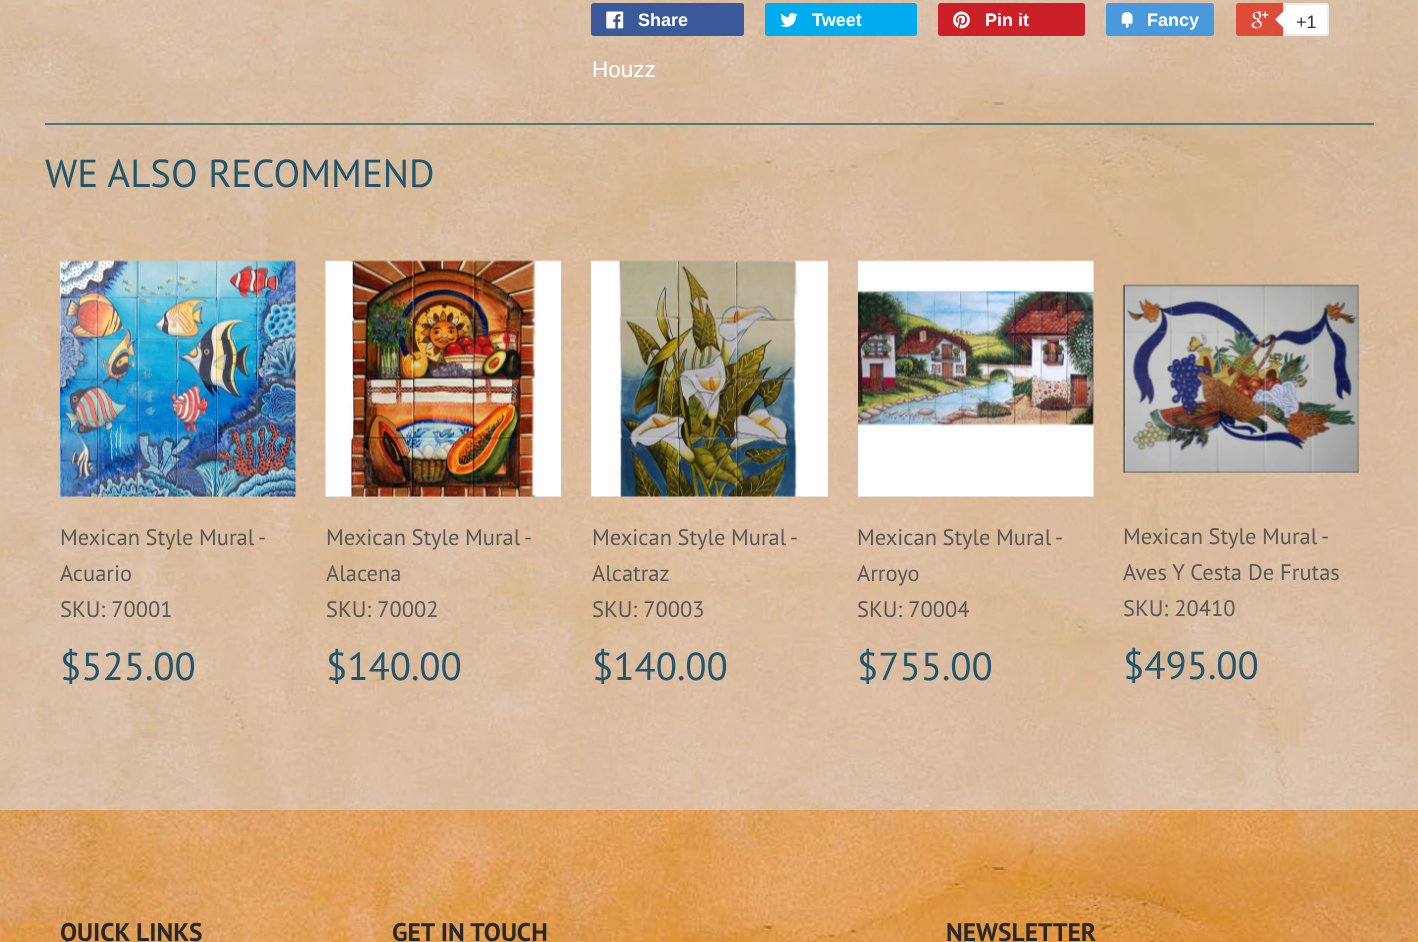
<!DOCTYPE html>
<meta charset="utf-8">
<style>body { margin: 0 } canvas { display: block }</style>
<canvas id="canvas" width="1418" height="942"></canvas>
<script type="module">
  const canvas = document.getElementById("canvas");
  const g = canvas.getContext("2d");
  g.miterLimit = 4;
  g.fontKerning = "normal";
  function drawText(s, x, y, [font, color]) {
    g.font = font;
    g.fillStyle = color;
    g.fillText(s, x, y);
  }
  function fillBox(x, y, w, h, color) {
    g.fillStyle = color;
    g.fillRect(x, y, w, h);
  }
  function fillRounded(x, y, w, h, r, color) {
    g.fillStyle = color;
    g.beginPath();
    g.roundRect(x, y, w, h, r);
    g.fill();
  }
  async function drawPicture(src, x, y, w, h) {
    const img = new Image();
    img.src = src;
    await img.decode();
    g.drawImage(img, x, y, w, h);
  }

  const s1 = ["bold 18px Liberation Sans", "#FFFFFF"];
  const s2 = ["18px Liberation Sans", "#333333"];
  const s3 = ["22.5px Liberation Sans", "#FFFFFF"];
  const s4 = ["39px PT Sans", "#23566D"];
  const s5 = ["22.5px PT Sans", "#585858"];
  const s6 = ["bold 25.5px PT Sans", "#2D2824"];

  fillBox(0, 0, 1418, 942, "#FFFFFF");
  await drawPicture("pic1.png", 0, 0, 1418, 810);
  fillRounded(591, 3, 153, 33, 3, "#3B5998");
  await drawPicture("pic2.png", 606, 11, 18, 18);
  drawText("Share", 638, 26, s1);
  fillRounded(765, 3, 152, 33, 3, "#00ACED");
  await drawPicture("pic3.png", 780, 12, 18, 15);
  drawText("Tweet", 812, 26, s1);
  fillRounded(938, 3, 147, 33, 3, "#CB2027");
  await drawPicture("pic4.png", 953, 11, 17, 18);
  drawText("Pin it", 985, 26, s1);
  fillRounded(1106, 3, 108, 33, 3, "#4999DC");
  await drawPicture("pic5.png", 1121, 12, 12, 16);
  drawText("Fancy", 1147, 26, s1);
  fillRounded(1236, 3, 90, 33, 3, "#DD4B39");
  await drawPicture("pic6.png", 1251, 11, 18, 18);
  g.fillStyle = "#FFFFFF";
  g.beginPath();
  g.roundRect(1284, 4, 44, 31, [0, 2, 2, 0]);
  g.fill();
  g.strokeStyle = "#ECECEC";
  g.lineWidth = 2;
  g.stroke();
  g.fillStyle = "#ECECEC";
  g.beginPath();
  g.moveTo(1284, 10.5);
  g.lineTo(1284, 28.5);
  g.lineTo(1275, 19.5);
  g.closePath();
  g.fill();
  g.fillStyle = "#FFFFFF";
  g.beginPath();
  g.moveTo(1285.5, 10.5);
  g.lineTo(1285.5, 28.5);
  g.lineTo(1276.5, 19.5);
  g.closePath();
  g.fill();
  drawText("+1", 1296, 28, s2);
  drawText("Houzz", 592, 77, s3);
  fillBox(45, 123, 1329, 2, "#4A767E");
  drawText("WE ALSO RECOMMEND", 45, 187, s4);
  await drawPicture("pic7.png", 60, 260, 236, 237);
  g.wordSpacing = "-0.5px";
  drawText("Mexican Style Mural -", 60, 545, s5);
  g.wordSpacing = "0px";
  drawText("Acuario", 60, 581, s5);
  drawText("SKU: 70001", 60, 617, s5);
  drawText("$525.00", 60, 680, s4);
  await drawPicture("pic8.png", 325, 260, 236, 237);
  g.wordSpacing = "-0.5px";
  drawText("Mexican Style Mural -", 326, 545, s5);
  g.wordSpacing = "0px";
  drawText("Alacena", 326, 581, s5);
  drawText("SKU: 70002", 326, 617, s5);
  drawText("$140.00", 326, 680, s4);
  await drawPicture("pic9.png", 591, 260, 237, 237);
  g.wordSpacing = "-0.5px";
  drawText("Mexican Style Mural -", 592, 545, s5);
  g.wordSpacing = "0px";
  drawText("Alcatraz", 592, 581, s5);
  drawText("SKU: 70003", 592, 617, s5);
  drawText("$140.00", 592, 680, s4);
  await drawPicture("pic10.png", 858, 260, 236, 237);
  g.wordSpacing = "-0.5px";
  drawText("Mexican Style Mural -", 857, 545, s5);
  g.wordSpacing = "0px";
  drawText("Arroyo", 857, 581, s5);
  drawText("SKU: 70004", 857, 617, s5);
  drawText("$755.00", 857, 680, s4);
  await drawPicture("pic11.png", 1123, 284, 236, 189);
  g.wordSpacing = "-0.5px";
  drawText("Mexican Style Mural -", 1123, 544, s5);
  g.wordSpacing = "0px";
  drawText("Aves Y Cesta De Frutas", 1123, 580, s5);
  drawText("SKU: 20410", 1123, 616, s5);
  drawText("$495.00", 1123, 679, s4);
  await drawPicture("pic12.png", 0, 810, 1418, 132);
  drawText("QUICK LINKS", 60, 941, s6);
  drawText("GET IN TOUCH", 392, 941, s6);
  drawText("NEWSLETTER", 946, 941, s6);
</script>
